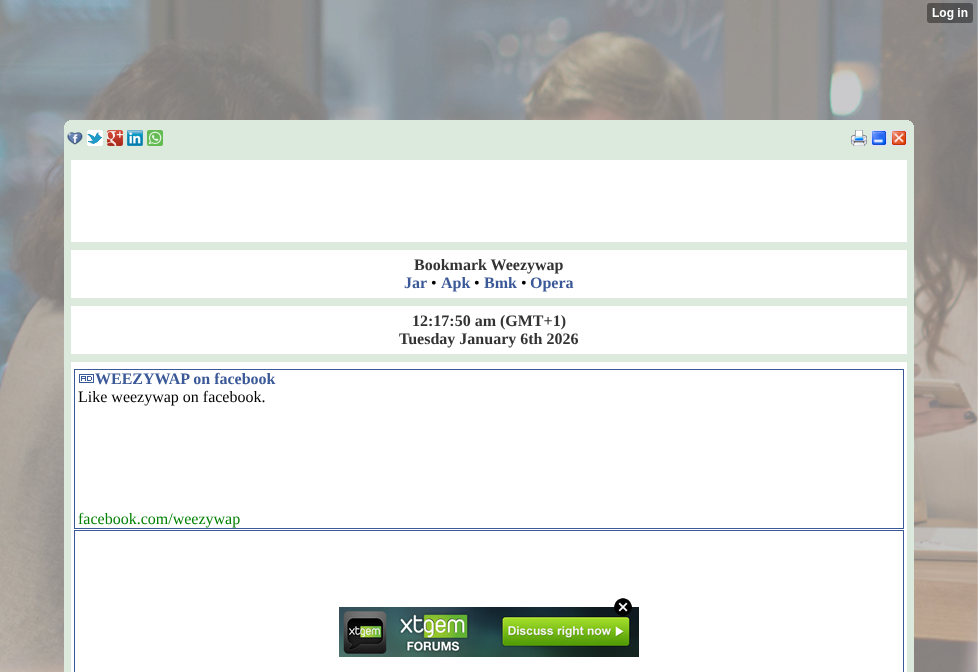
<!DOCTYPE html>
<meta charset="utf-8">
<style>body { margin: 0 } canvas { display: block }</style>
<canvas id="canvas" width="978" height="672"></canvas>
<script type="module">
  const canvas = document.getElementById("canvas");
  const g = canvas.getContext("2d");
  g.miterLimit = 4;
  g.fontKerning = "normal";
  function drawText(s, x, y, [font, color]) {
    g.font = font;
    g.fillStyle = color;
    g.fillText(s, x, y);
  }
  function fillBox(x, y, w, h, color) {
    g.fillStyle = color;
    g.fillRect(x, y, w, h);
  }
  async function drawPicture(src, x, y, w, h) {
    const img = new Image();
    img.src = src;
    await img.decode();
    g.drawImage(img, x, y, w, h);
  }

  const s1 = ["bold 16px Liberation Serif", "#333333"];
  const s2 = ["bold 16px Liberation Serif", "#3B5998"];
  const s3 = ["16px Liberation Serif", "#000000"];
  const s4 = ["16px Liberation Serif", "#008000"];

  fillBox(0, 0, 978, 672, "#FFFFFF");
  await drawPicture("pic1.png", 0, 0, 978, 672);
  await drawPicture("pic2.png", 0, 0, 978, 672);
  await drawPicture("pic3.png", 927, 3, 46, 20);
  fillBox(69, 120, 840, 1, "#DBEADC");
  fillBox(67, 121, 844, 1, "#DBEADC");
  fillBox(66, 122, 846, 1, "#DBEADC");
  fillBox(65, 123, 848, 2, "#DBEADC");
  fillBox(64, 125, 850, 547, "#DBEADC");
  await drawPicture("pic4.png", 67, 132, 16, 13);
  await drawPicture("pic5.png", 87, 130, 16, 16);
  await drawPicture("pic6.png", 107, 130, 16, 16);
  await drawPicture("pic7.png", 127, 130, 16, 16);
  await drawPicture("pic8.png", 147, 130, 16, 16);
  await drawPicture("pic9.png", 851, 130, 16, 16);
  await drawPicture("pic10.png", 871, 130, 16, 16);
  await drawPicture("pic11.png", 891, 130, 16, 16);
  fillBox(71, 160, 836, 82, "#FFFFFF");
  fillBox(71, 250, 836, 48, "#FFFFFF");
  drawText("Bookmark Weezywap", 414, 270, s1);
  drawText("Jar", 404, 288, s2);
  drawText("•", 431, 288, s3);
  drawText("Apk", 441, 288, s2);
  drawText("•", 474, 288, s3);
  drawText("Bmk", 484, 288, s2);
  drawText("•", 521, 288, s3);
  drawText("Opera", 530, 288, s2);
  fillBox(71, 306, 836, 48, "#FFFFFF");
  drawText("12:17:50 am (GMT+1)", 412, 326, s1);
  drawText("Tuesday January 6th 2026", 399, 344, s1);
  fillBox(71, 362, 836, 310, "#FFFFFF");
  g.strokeStyle = "#3B5998";
  g.strokeRect(74.5, 369.5, 829, 159);
  await drawPicture("pic12.png", 79, 374, 15, 9);
  drawText("WEEZYWAP on facebook", 95, 384, s2);
  drawText("Like weezywap on facebook.", 78, 402, s3);
  drawText("facebook.com/weezywap", 78, 524, s4);
  g.strokeRect(74.5, 530.5, 829, 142);
  await drawPicture("pic14.png", 339, 607, 300, 50);
  await drawPicture("pic13.png", 614, 598, 18, 18);
</script>
